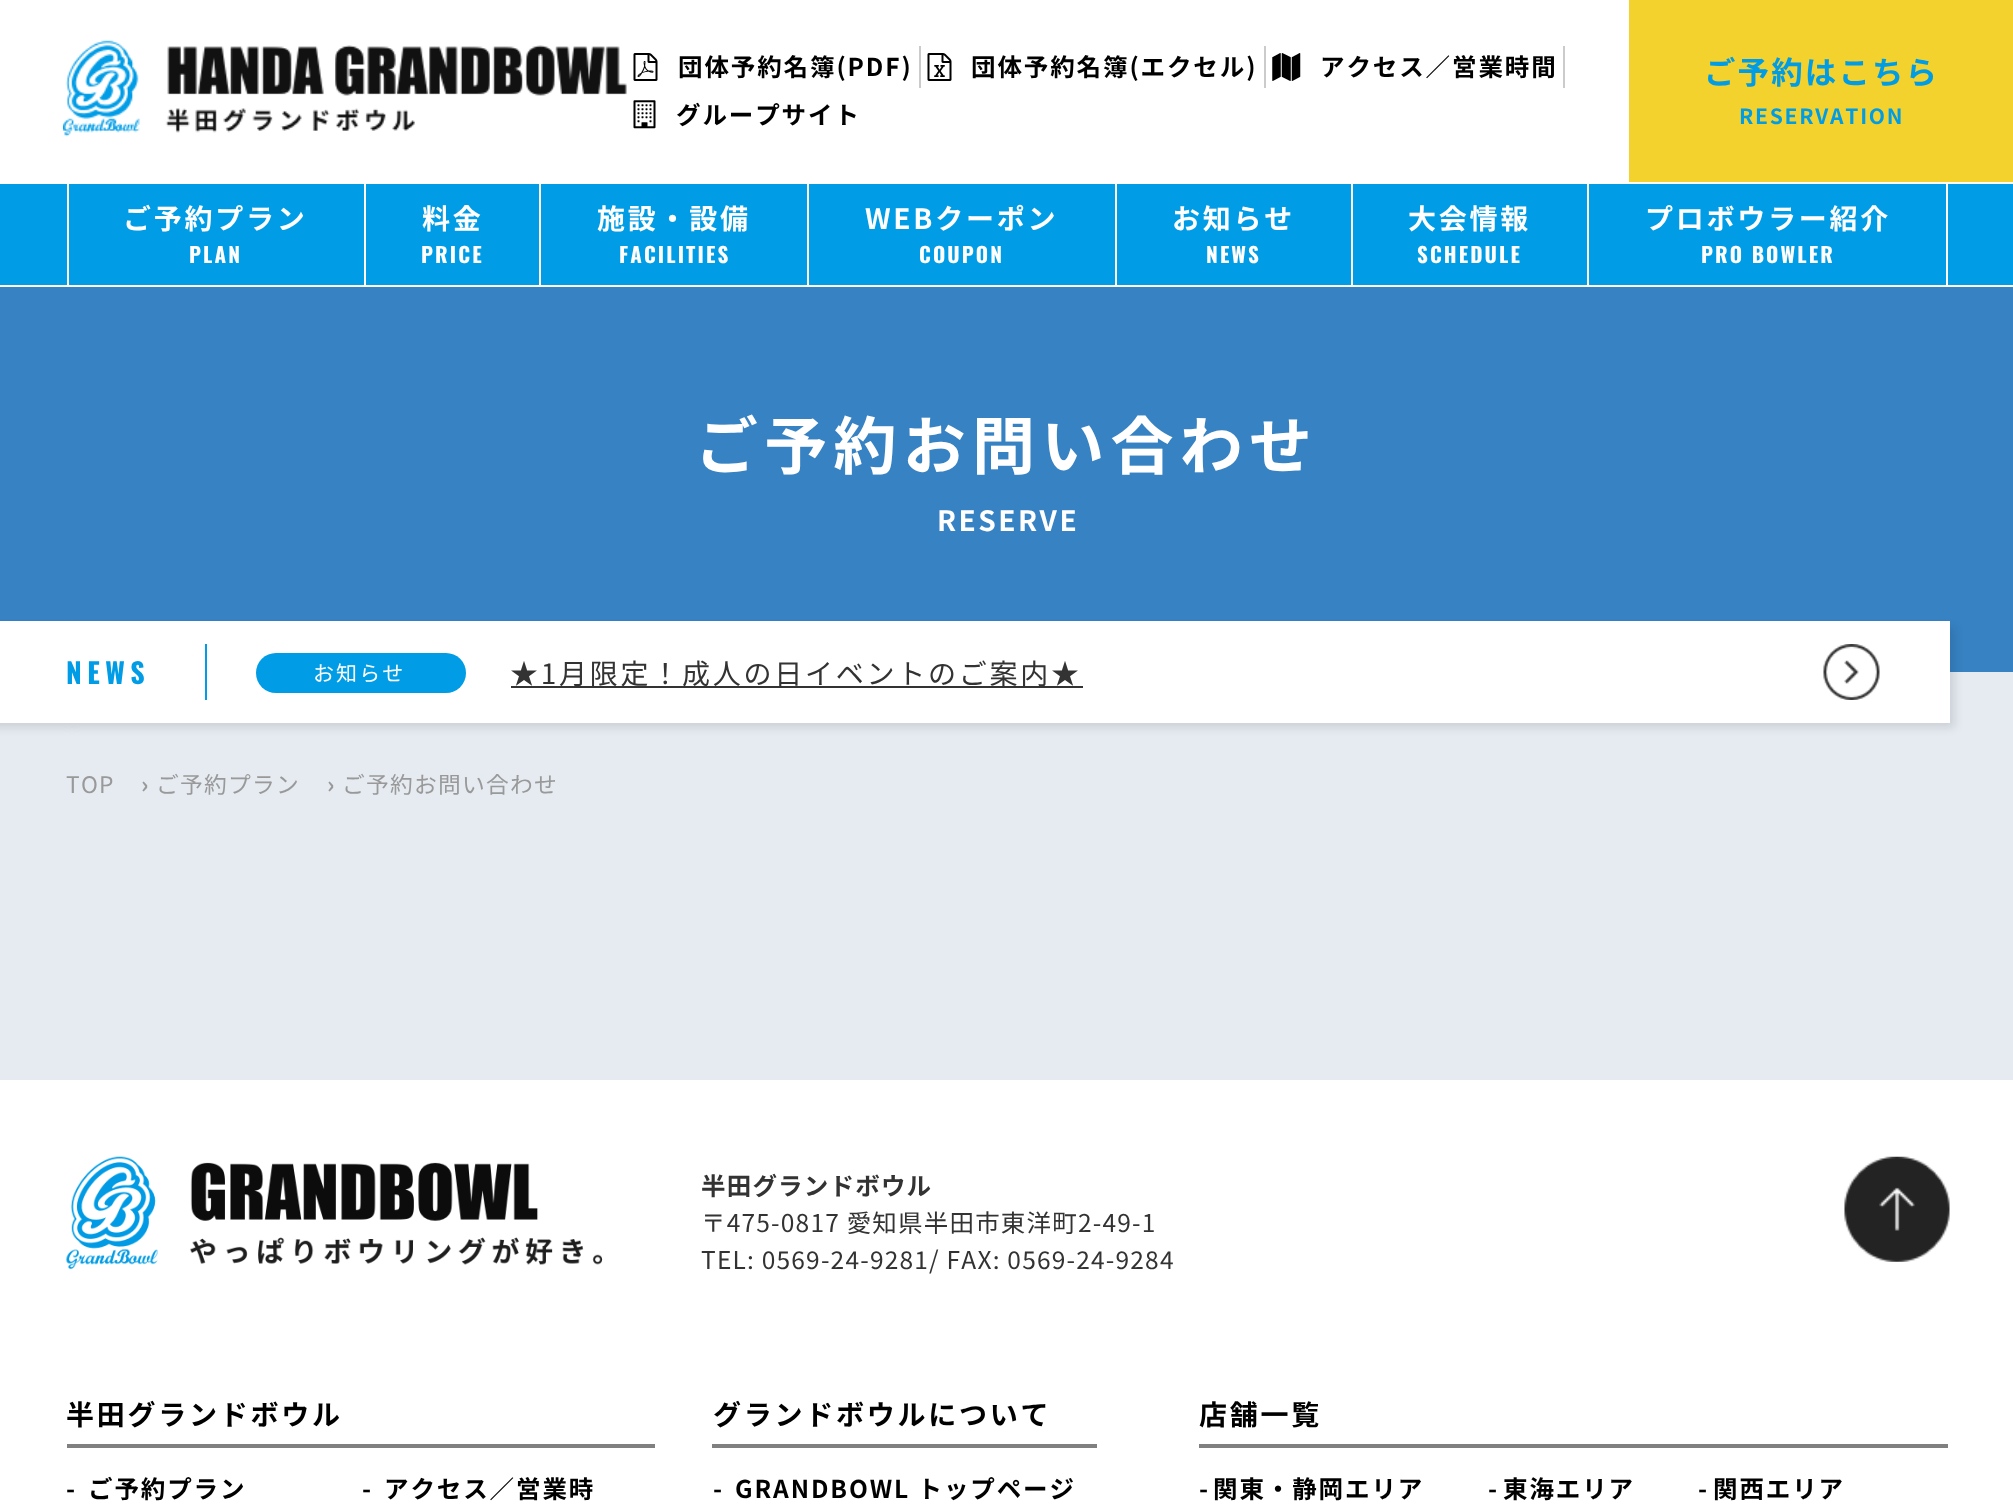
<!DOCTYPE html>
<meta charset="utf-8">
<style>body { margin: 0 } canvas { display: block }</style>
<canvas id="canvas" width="2013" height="1507"></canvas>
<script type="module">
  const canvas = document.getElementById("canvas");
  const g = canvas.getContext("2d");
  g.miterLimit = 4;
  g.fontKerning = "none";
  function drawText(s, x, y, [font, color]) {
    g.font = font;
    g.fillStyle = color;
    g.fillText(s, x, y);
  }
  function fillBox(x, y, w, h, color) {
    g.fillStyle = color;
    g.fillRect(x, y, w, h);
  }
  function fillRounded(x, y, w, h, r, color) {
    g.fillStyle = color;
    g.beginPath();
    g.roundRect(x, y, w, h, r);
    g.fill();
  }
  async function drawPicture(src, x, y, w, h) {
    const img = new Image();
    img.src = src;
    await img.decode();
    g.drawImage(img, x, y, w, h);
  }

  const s1 = ["bold 24.5px Noto Sans JP", "#000000"];
  const s2 = ["bold 31.5px Noto Sans JP", "#009CE5"];
  const s3 = ["bold 21px Noto Sans JP", "#009CE5"];
  const s4 = ["bold 28px Noto Sans JP", "#FFFFFF"];
  const s5 = ["bold 21px Oswald", "#FFFFFF"];
  const s6 = ["bold 63px Noto Sans JP", "#FFFFFF"];
  const s7 = ["bold 28px Oswald", "#009CE5"];
  const s8 = ["21px Noto Sans JP", "#FFFFFF"];
  const s9 = ["28px Noto Sans JP", "#333333"];
  const s10 = ["22.75px Noto Sans JP", "#999999"];
  const s11 = ["bold 22.75px Noto Sans JP", "#999999"];
  const s12 = ["bold 24.5px Noto Sans JP", "#333333"];
  const s13 = ["24.5px Noto Sans JP", "#333333"];
  const s14 = ["bold 28px Noto Sans JP", "#000000"];

  fillBox(0, 0, 2013, 1507, "#E5EBF1");
  fillBox(0, 0, 1629, 182, "#FFFFFF");
  await drawPicture("pic1.png", 63, 40, 564, 97);
  await drawPicture("pic2.png", 633, 53, 25, 28);
  g.letterSpacing = "1.9px";
  drawText("団体予約名簿(PDF)", 678, 76, s1);
  fillBox(919, 46, 2, 42, "#CBCBCB");
  await drawPicture("pic3.png", 927, 53, 25, 28);
  drawText("団体予約名簿(エクセル)", 971, 76, s1);
  fillBox(1264, 46, 2, 42, "#CBCBCB");
  await drawPicture("pic4.png", 1272, 53, 29, 28);
  drawText("アクセス／営業時間", 1320, 76, s1);
  fillBox(1563, 46, 2, 42, "#CBCBCB");
  await drawPicture("pic5.png", 633, 100, 23, 29);
  drawText("グループサイト", 676, 124, s1);
  fillBox(1629, 0, 384, 182, "#F3D22D");
  g.letterSpacing = "2.1px";
  drawText("ご予約はこちら", 1704, 84, s2);
  g.letterSpacing = "1.75px";
  drawText("RESERVATION", 1739, 124, s3);
  fillBox(0, 184, 2013, 101, "#009CE5");
  fillBox(0, 182, 2013, 2, "#FFFFFF");
  fillBox(0, 285, 2013, 2, "#FFFFFF");
  fillBox(364, 184, 2, 101, "#FFFFFF");
  fillBox(67, 184, 2, 101, "#FFFFFF");
  g.letterSpacing = "2.75px";
  drawText("ご予約プラン", 123, 229, s4);
  g.letterSpacing = "2.1px";
  drawText("PLAN", 189, 263, s5);
  fillBox(539, 184, 2, 101, "#FFFFFF");
  g.letterSpacing = "2.75px";
  drawText("料金", 422, 229, s4);
  g.letterSpacing = "2.1px";
  drawText("PRICE", 421, 263, s5);
  fillBox(807, 184, 2, 101, "#FFFFFF");
  g.letterSpacing = "2.75px";
  drawText("施設・設備", 597, 229, s4);
  g.letterSpacing = "2.1px";
  drawText("FACILITIES", 619, 263, s5);
  fillBox(1115, 184, 2, 101, "#FFFFFF");
  g.letterSpacing = "2.75px";
  drawText("WEBクーポン", 865, 229, s4);
  g.letterSpacing = "2.1px";
  drawText("COUPON", 919, 263, s5);
  fillBox(1351, 184, 2, 101, "#FFFFFF");
  g.letterSpacing = "2.75px";
  drawText("お知らせ", 1172, 229, s4);
  g.letterSpacing = "2.1px";
  drawText("NEWS", 1206, 263, s5);
  fillBox(1587, 184, 2, 101, "#FFFFFF");
  g.letterSpacing = "2.75px";
  drawText("大会情報", 1408, 229, s4);
  g.letterSpacing = "2.1px";
  drawText("SCHEDULE", 1417, 263, s5);
  fillBox(1946, 184, 2, 101, "#FFFFFF");
  g.letterSpacing = "2.75px";
  drawText("プロボウラー紹介", 1645, 229, s4);
  g.letterSpacing = "2.1px";
  drawText("PRO BOWLER", 1701, 263, s5);
  fillBox(0, 287, 2013, 385, "#3782C3");
  g.letterSpacing = "6.25px";
  drawText("ご予約お問い合わせ", 695, 469, s6);
  g.letterSpacing = "2.5px";
  drawText("RESERVE", 937, 531, s4);
  g.fillStyle = "rgba(0, 0, 0, 0.1)";
  g.filter = "blur(4.5px)";
  g.beginPath();
  g.rect(72, 627, 1883, 101);
  g.fill();
  g.filter = "none";
  fillBox(84, 621, 1866, 102, "#FFFFFF");
  g.fillStyle = "rgba(0, 0, 0, 0.1)";
  g.filter = "blur(4.5px)";
  g.beginPath();
  g.rect(-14, 627, 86, 101);
  g.fill();
  g.filter = "none";
  fillBox(0, 621, 84, 102, "#FFFFFF");
  g.letterSpacing = "5.5px";
  drawText("NEWS", 66, 684, s7);
  fillBox(205, 644, 2, 56, "#009CE5");
  fillRounded(256, 653, 210, 40, 20, "#009CE5");
  g.letterSpacing = "2.1px";
  drawText("お知らせ", 313, 681, s8);
  fillBox(511, 686, 572, 2, "#333333");
  g.letterSpacing = "2.75px";
  drawText("★1月限定！成人の日イベントのご案内★", 510, 684, s9);
  await drawPicture("pic6.png", 1823, 644, 57, 56);
  g.letterSpacing = "1.25px";
  drawText("TOP", 66, 793, s10);
  drawText("›", 141, 793, s11);
  drawText("ご予約プラン", 156, 793, s10);
  drawText("›", 327, 793, s11);
  drawText("ご予約お問い合わせ", 342, 793, s10);
  fillBox(0, 1080, 2013, 427, "#FFFFFF");
  await drawPicture("pic7.png", 66, 1156, 537, 113);
  g.letterSpacing = "1.2px";
  drawText("半田グランドボウル", 701, 1195, s12);
  drawText("〒475-0817 愛知県半田市東洋町2-49-1", 701, 1232, s13);
  drawText("TEL: 0569-24-9281/ FAX: 0569-24-9284", 701, 1269, s13);
  await drawPicture("pic8.png", 1844, 1156, 106, 106);
  fillBox(67, 1444, 588, 4, "#808080");
  g.letterSpacing = "2.75px";
  drawText("半田グランドボウル", 66, 1425, s14);
  g.letterSpacing = "1.9px";
  drawText("-", 66, 1498, s1);
  drawText("ご予約プラン", 88, 1498, s1);
  drawText("-", 362, 1498, s1);
  drawText("アクセス／営業時", 384, 1498, s1);
  fillBox(712, 1444, 385, 4, "#808080");
  g.letterSpacing = "2.75px";
  drawText("グランドボウルについて", 713, 1425, s14);
  g.letterSpacing = "1.9px";
  drawText("-", 713, 1498, s1);
  drawText("GRANDBOWL トップページ", 735, 1498, s1);
  fillBox(1199, 1444, 749, 4, "#808080");
  g.letterSpacing = "2.75px";
  drawText("店舗一覧", 1199, 1425, s14);
  g.letterSpacing = "1.9px";
  drawText("-", 1199, 1498, s1);
  drawText("関東・静岡エリア", 1213, 1498, s1);
  drawText("-", 1488, 1498, s1);
  drawText("東海エリア", 1503, 1498, s1);
  drawText("-", 1698, 1498, s1);
  drawText("関西エリア", 1713, 1498, s1);
</script>
